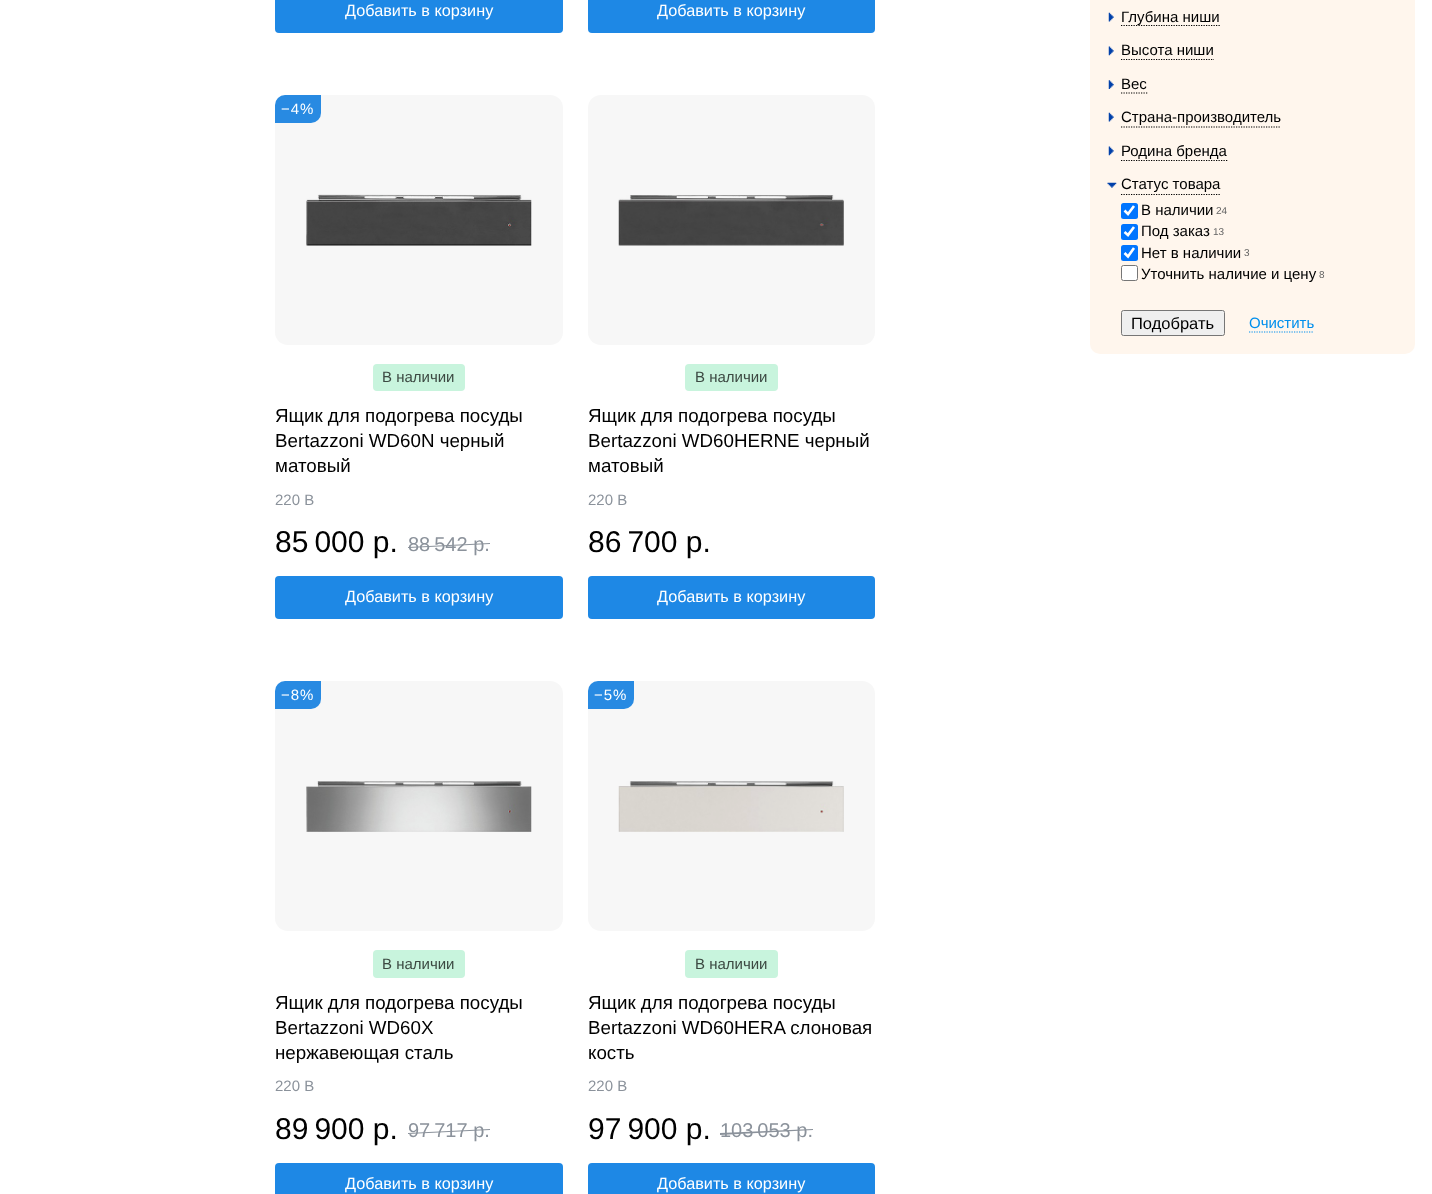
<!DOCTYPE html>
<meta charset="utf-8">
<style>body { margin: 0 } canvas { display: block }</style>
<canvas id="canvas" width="1432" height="1194"></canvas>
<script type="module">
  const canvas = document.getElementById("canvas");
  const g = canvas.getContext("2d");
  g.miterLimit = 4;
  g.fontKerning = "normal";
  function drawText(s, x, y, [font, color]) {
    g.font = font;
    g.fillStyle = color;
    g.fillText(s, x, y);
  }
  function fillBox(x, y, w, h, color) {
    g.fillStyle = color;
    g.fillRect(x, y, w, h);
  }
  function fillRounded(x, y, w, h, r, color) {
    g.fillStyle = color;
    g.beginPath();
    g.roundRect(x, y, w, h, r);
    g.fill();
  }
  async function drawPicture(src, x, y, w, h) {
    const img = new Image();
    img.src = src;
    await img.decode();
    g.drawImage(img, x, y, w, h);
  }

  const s1 = ["16.25px Liberation Sans", "#FFFFFF"];
  const s2 = ["15px Liberation Sans", "#FFFFFF"];
  const s3 = ["15px Liberation Sans", "#3C4942"];
  const s4 = ["18.75px Liberation Sans", "#000000"];
  const s5 = ["15px Liberation Sans", "#8B929B"];
  const s6 = ["30px Liberation Sans", "#000000"];
  const s7 = ["20px Liberation Sans", "#8B929B"];
  const s8 = ["15px Liberation Sans", "#000000"];
  const s9 = ["10px Liberation Sans", "#646464"];
  const s10 = ["16.5px Liberation Sans", "#000000"];
  const s11 = ["15px Liberation Sans", "#008FED"];

  fillBox(0, 0, 1432, 1194, "#FFFFFF");
  fillRounded(275, -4, 288, 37, 4, "#1E88E5");
  drawText("Добавить в корзину", 345, 16, s1);
  fillRounded(588, -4, 287, 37, 4, "#1E88E5");
  drawText("Добавить в корзину", 657, 16, s1);
  fillRounded(275, 95, 288, 250, 13, "#F7F7F7");
  g.fillStyle = "#288AE2";
  g.beginPath();
  g.roundRect(275, 95, 46, 28, [10, 0, 10, 0]);
  g.fill();
  g.letterSpacing = "1px";
  drawText("−4%", 281, 114, s2);
  await drawPicture("pic1.png", 306, 194, 226, 52);
  fillRounded(373, 364, 92, 27, 4, "#C8F4DD");
  g.letterSpacing = "0px";
  drawText("В наличии", 382, 382, s3);
  drawText("Ящик для подогрева посуды", 275, 422, s4);
  drawText("Bertazzoni WD60N черный", 275, 447, s4);
  drawText("матовый", 275, 472, s4);
  drawText("220 В", 275, 505, s5);
  drawText("85 000 р.", 275, 552, s6);
  drawText("88 542 р.", 408, 551, s7);
  g.beginPath();
  g.moveTo(408, 547);
  g.lineTo(490, 543);
  g.lineTo(490, 544);
  g.lineTo(408, 548);
  g.closePath();
  g.fill();
  fillRounded(275, 576, 288, 43, 4, "#1E88E5");
  drawText("Добавить в корзину", 345, 602, s1);
  fillRounded(588, 95, 287, 250, 13, "#F7F7F7");
  await drawPicture("pic2.png", 618, 195, 226, 51);
  fillRounded(685, 364, 93, 27, 4, "#C8F4DD");
  drawText("В наличии", 695, 382, s3);
  drawText("Ящик для подогрева посуды", 588, 422, s4);
  drawText("Bertazzoni WD60HERNE черный", 588, 447, s4);
  drawText("матовый", 588, 472, s4);
  drawText("220 В", 588, 505, s5);
  drawText("86 700 р.", 588, 552, s6);
  fillRounded(588, 576, 287, 43, 4, "#1E88E5");
  drawText("Добавить в корзину", 657, 602, s1);
  fillRounded(275, 681, 288, 250, 13, "#F7F7F7");
  g.fillStyle = "#288AE2";
  g.beginPath();
  g.roundRect(275, 681, 46, 28, [10, 0, 10, 0]);
  g.fill();
  g.letterSpacing = "1px";
  drawText("−8%", 281, 700, s2);
  await drawPicture("pic3.png", 306, 781, 226, 51);
  fillRounded(373, 950, 92, 28, 4, "#C8F4DD");
  g.letterSpacing = "0px";
  drawText("В наличии", 382, 969, s3);
  drawText("Ящик для подогрева посуды", 275, 1009, s4);
  drawText("Bertazzoni WD60X", 275, 1034, s4);
  drawText("нержавеющая сталь", 275, 1059, s4);
  drawText("220 В", 275, 1091, s5);
  drawText("89 900 р.", 275, 1139, s6);
  drawText("97 717 р.", 408, 1137, s7);
  g.beginPath();
  g.moveTo(408, 1133);
  g.lineTo(490, 1129);
  g.lineTo(490, 1130);
  g.lineTo(408, 1134);
  g.closePath();
  g.fill();
  fillRounded(275, 1163, 288, 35, 4, "#1E88E5");
  drawText("Добавить в корзину", 345, 1189, s1);
  fillRounded(588, 681, 287, 250, 13, "#F7F7F7");
  g.fillStyle = "#288AE2";
  g.beginPath();
  g.roundRect(588, 681, 46, 28, [10, 0, 10, 0]);
  g.fill();
  g.letterSpacing = "1px";
  drawText("−5%", 594, 700, s2);
  await drawPicture("pic4.png", 618, 781, 226, 51);
  fillRounded(685, 950, 93, 28, 4, "#C8F4DD");
  g.letterSpacing = "0px";
  drawText("В наличии", 695, 969, s3);
  drawText("Ящик для подогрева посуды", 588, 1009, s4);
  drawText("Bertazzoni WD60HERA слоновая", 588, 1034, s4);
  drawText("кость", 588, 1059, s4);
  drawText("220 В", 588, 1091, s5);
  drawText("97 900 р.", 588, 1139, s6);
  drawText("103 053 р.", 720, 1137, s7);
  g.beginPath();
  g.moveTo(720, 1133);
  g.lineTo(813, 1129);
  g.lineTo(813, 1130);
  g.lineTo(720, 1135);
  g.closePath();
  g.fill();
  fillRounded(588, 1163, 287, 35, 4, "#1E88E5");
  drawText("Добавить в корзину", 657, 1189, s1);
  fillRounded(1090, -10, 325, 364, 10, "#FFF6ED");
  await drawPicture("pic5.png", 1108, 12, 6, 10);
  g.beginPath();
  g.moveTo(1121, 25.5);
  g.lineTo(1220, 25.5);
  g.strokeStyle = "#000000";
  g.lineWidth = 1.2;
  g.setLineDash([1.25, 1.25]);
  g.stroke();
  drawText("Глубина ниши", 1121, 22, s8);
  await drawPicture("pic6.png", 1108, 46, 6, 10);
  drawText("Высота ниши", 1121, 55, s8);
  g.beginPath();
  g.moveTo(1121, 59.5);
  g.lineTo(1214, 59.5);
  g.stroke();
  await drawPicture("pic7.png", 1108, 80, 6, 9);
  drawText("Вес", 1121, 89, s8);
  g.beginPath();
  g.moveTo(1121, 93);
  g.lineTo(1147.5, 93);
  g.stroke();
  await drawPicture("pic5.png", 1108, 112, 6, 10);
  drawText("Страна-производитель", 1121, 122, s8);
  g.beginPath();
  g.moveTo(1121, 127);
  g.lineTo(1281, 127);
  g.stroke();
  await drawPicture("pic6.png", 1108, 146, 6, 10);
  g.beginPath();
  g.moveTo(1121, 160.5);
  g.lineTo(1227.5, 160.5);
  g.stroke();
  drawText("Родина бренда", 1121, 156, s8);
  await drawPicture("pic8.png", 1107, 182, 10, 6);
  drawText("Статус товара", 1121, 189, s8);
  g.beginPath();
  g.moveTo(1121, 194.5);
  g.lineTo(1221, 194.5);
  g.stroke();
  fillRounded(1121, 203, 17, 16, 2.5, "#0075FF");
  g.beginPath();
  g.moveTo(1124.5, 210.5);
  g.lineTo(1128, 214);
  g.lineTo(1134, 206);
  g.strokeStyle = "#FFFFFF";
  g.lineWidth = 2.6;
  g.setLineDash([]);
  g.stroke();
  drawText("В наличии", 1141, 215, s8);
  drawText("24", 1216, 214, s9);
  fillRounded(1121, 224, 17, 16, 2.5, "#0075FF");
  g.beginPath();
  g.moveTo(1124.5, 232);
  g.lineTo(1128, 235);
  g.lineTo(1134, 227);
  g.stroke();
  drawText("Под заказ", 1141, 236, s8);
  drawText("13", 1213, 235, s9);
  fillRounded(1121, 245, 17, 16, 2.5, "#0075FF");
  g.beginPath();
  g.moveTo(1124.5, 253);
  g.lineTo(1128, 256.5);
  g.lineTo(1134, 248);
  g.stroke();
  drawText("Нет в наличии", 1141, 258, s8);
  drawText("3", 1244, 256, s9);
  g.fillStyle = "#FFFFFF";
  g.beginPath();
  g.roundRect(1121.5, 265.5, 16, 15, 2);
  g.fill();
  g.strokeStyle = "#767676";
  g.lineWidth = 1;
  g.stroke();
  drawText("Уточнить наличие и цену", 1141, 279, s8);
  drawText("8", 1319, 278, s9);
  g.fillStyle = "#EFEFEF";
  g.beginPath();
  g.roundRect(1121.5, 310.5, 103, 25, 2);
  g.fill();
  g.stroke();
  drawText("Подобрать", 1131, 329, s10);
  drawText("Очистить", 1249, 328, s11);
  g.beginPath();
  g.moveTo(1249, 332);
  g.lineTo(1314, 332);
  g.strokeStyle = "#008FED";
  g.lineWidth = 1.2;
  g.setLineDash([1.25, 1.25]);
  g.stroke();
</script>
